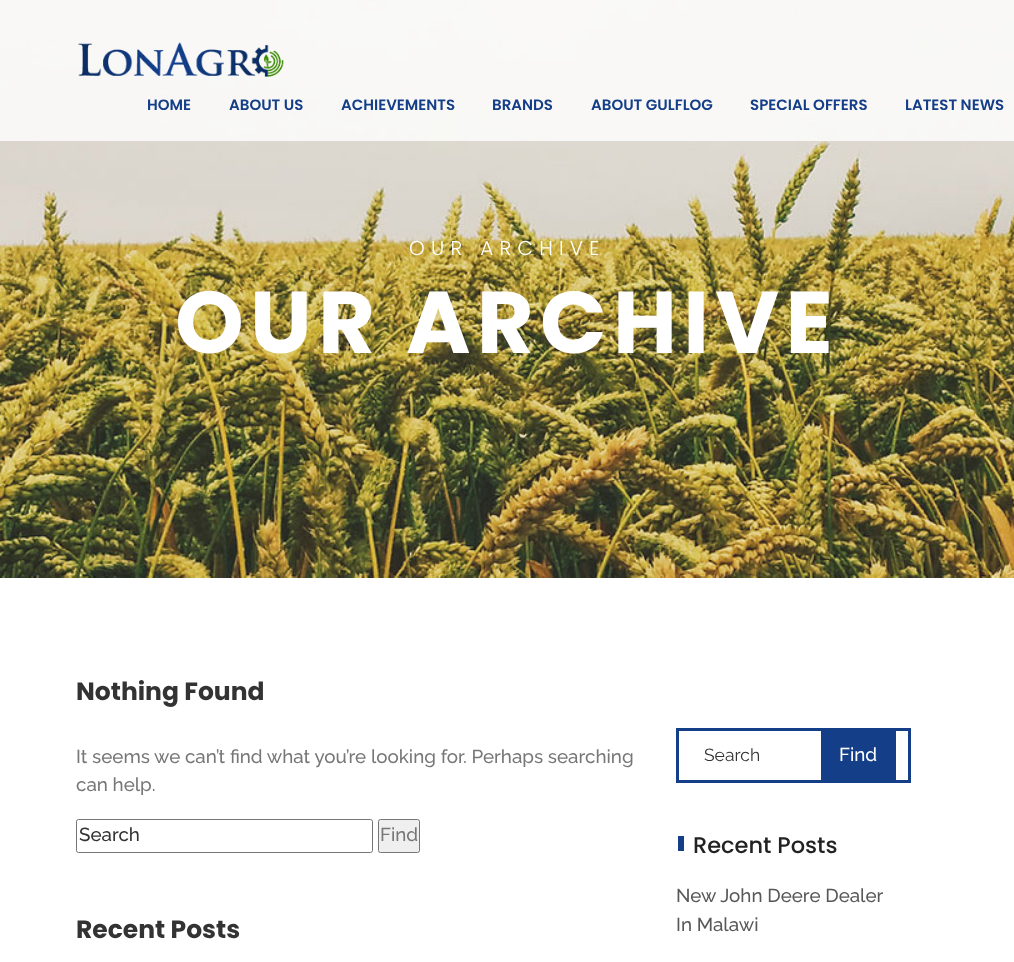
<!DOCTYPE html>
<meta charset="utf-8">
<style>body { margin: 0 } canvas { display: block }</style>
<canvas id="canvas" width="1014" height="962"></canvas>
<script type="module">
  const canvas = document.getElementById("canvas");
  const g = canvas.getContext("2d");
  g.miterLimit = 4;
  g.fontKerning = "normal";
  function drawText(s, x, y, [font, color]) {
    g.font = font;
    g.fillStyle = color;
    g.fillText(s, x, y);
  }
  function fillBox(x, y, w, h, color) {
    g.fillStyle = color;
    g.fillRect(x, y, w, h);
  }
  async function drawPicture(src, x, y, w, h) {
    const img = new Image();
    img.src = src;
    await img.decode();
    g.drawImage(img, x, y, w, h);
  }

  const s1 = ["600 15px Poppins", "#143E88"];
  const s2 = ["300 20px Poppins", "#FFFFFF"];
  const s3 = ["bold 87.5px Poppins", "#FFFFFF"];
  const s4 = ["bold 25px Poppins", "#333333"];
  const s5 = ["500 18.75px Raleway", "#777777"];
  const s6 = ["500 18.75px Raleway", "#333333"];
  const s7 = ["17.5px Raleway", "#333333"];
  const s8 = ["500 18.75px Raleway", "#FFFFFF"];
  const s9 = ["500 22.5px Poppins", "#222222"];
  const s10 = ["500 18.75px Raleway", "#585858"];

  fillBox(0, 0, 1014, 962, "#FFFFFF");
  await drawPicture("pic2.png", 0, 0, 1014, 578);
  fillBox(0, 0, 1014, 141, "rgba(255, 255, 255, 0.8)");
  await drawPicture("pic1.png", 78, 42, 206, 35);
  drawText("HOME", 147, 110, s1);
  drawText("ABOUT US", 229, 110, s1);
  drawText("ACHIEVEMENTS", 341, 110, s1);
  drawText("BRANDS", 492, 110, s1);
  drawText("ABOUT GULFLOG", 591, 110, s1);
  drawText("SPECIAL OFFERS", 750, 110, s1);
  drawText("LATEST NEWS", 905, 110, s1);
  g.letterSpacing = "6.25px";
  drawText("OUR ARCHIVE", 409, 255, s2);
  drawText("OUR ARCHIVE", 175, 353, s3);
  g.letterSpacing = "0px";
  drawText("Nothing Found", 76, 700, s4);
  drawText("It seems we can’t find what you’re looking for. Perhaps searching", 76, 763, s5);
  drawText("can help.", 76, 791, s5);
  g.beginPath();
  g.roundRect(76.5, 819.5, 296, 33, 2);
  g.strokeStyle = "#767676";
  g.stroke();
  drawText("Search", 79, 841, s6);
  g.fillStyle = "#EFEFEF";
  g.beginPath();
  g.roundRect(378.5, 819.5, 41, 33, 2);
  g.fill();
  g.stroke();
  drawText("Find", 380, 841, s5);
  drawText("Recent Posts", 76, 938, s4);
  g.strokeStyle = "#143E88";
  g.lineWidth = 3;
  g.strokeRect(677.5, 729.5, 232, 52);
  drawText("Search", 704, 761, s7);
  fillBox(821, 731, 75, 49, "#143E88");
  drawText("Find", 839, 761, s8);
  fillBox(678, 836, 6, 15, "#143E88");
  drawText("Recent Posts", 693, 853, s9);
  drawText("New John Deere Dealer", 676, 902, s10);
  drawText("In Malawi", 676, 931, s10);
</script>
